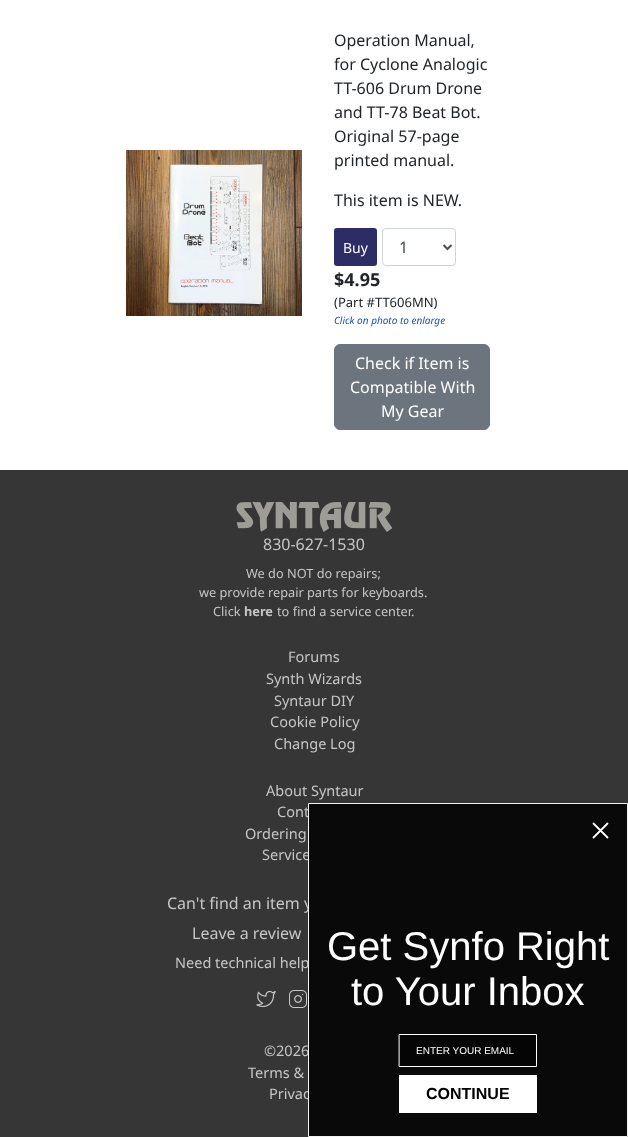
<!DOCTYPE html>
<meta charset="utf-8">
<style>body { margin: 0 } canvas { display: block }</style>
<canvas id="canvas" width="628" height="1137"></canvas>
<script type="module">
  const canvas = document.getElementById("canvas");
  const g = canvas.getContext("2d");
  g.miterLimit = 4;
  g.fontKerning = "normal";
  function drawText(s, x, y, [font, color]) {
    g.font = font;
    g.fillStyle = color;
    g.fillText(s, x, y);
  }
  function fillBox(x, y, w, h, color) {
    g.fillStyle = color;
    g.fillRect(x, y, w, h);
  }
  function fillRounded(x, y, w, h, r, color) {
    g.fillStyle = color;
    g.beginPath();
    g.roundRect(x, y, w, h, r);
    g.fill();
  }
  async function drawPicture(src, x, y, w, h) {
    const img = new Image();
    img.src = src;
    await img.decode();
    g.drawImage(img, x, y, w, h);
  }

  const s1 = ["16px Noto Sans", "#212529"];
  const s2 = ["14px Noto Sans", "#FFFFFF"];
  const s3 = ["16px Noto Sans", "#495057"];
  const s4 = ["bold 18px Noto Sans", "#212529"];
  const s5 = ["13px Noto Sans", "#212529"];
  const s6 = ["italic 10px Noto Sans", "#1553BC"];
  const s7 = ["16px Noto Sans", "#FFFFFF"];
  const s8 = ["16px Noto Sans", "#C6C6C6"];
  const s9 = ["12.75px Noto Sans", "#C6C6C6"];
  const s10 = ["bold 12.75px Noto Sans", "#C6C6C6"];
  const s11 = ["14.5px Noto Sans", "#C6C6C6"];
  const s12 = ["40px Liberation Sans", "#FFFFFF"];
  const s13 = ["10px Liberation Sans", "#FFFFFF"];
  const s14 = ["bold 16px Liberation Sans", "#000000"];

  fillBox(0, 0, 628, 1137, "#FFFFFF");
  await drawPicture("pic1.png", 126, 150, 176, 166);
  drawText("Operation Manual,", 334, 46, s1);
  drawText("for Cyclone Analogic", 334, 70, s1);
  drawText("TT-606 Drum Drone", 334, 94, s1);
  drawText("and TT-78 Beat Bot.", 334, 118, s1);
  drawText("Original 57-page", 334, 142, s1);
  drawText("printed manual.", 334, 166, s1);
  drawText("This item is NEW.", 334, 206, s1);
  fillRounded(334, 228, 43, 38, 3, "#2C2D65");
  drawText("Buy", 343, 253, s2);
  g.beginPath();
  g.roundRect(382.5, 228.5, 73, 37, 3.5);
  g.strokeStyle = "#CED4DA";
  g.stroke();
  g.beginPath();
  g.moveTo(443.5, 245);
  g.lineTo(447.5, 249);
  g.lineTo(451.5, 245);
  g.strokeStyle = "#495057";
  g.lineWidth = 2;
  g.stroke();
  drawText("1", 399, 253, s3);
  drawText("$4.95", 334, 286, s4);
  drawText("(Part #TT606MN)", 334, 307, s5);
  drawText("Click on photo to enlarge", 334, 324, s6);
  g.fillStyle = "#6C757D";
  g.beginPath();
  g.roundRect(334.5, 344.5, 155, 85, 5.5);
  g.fill();
  g.strokeStyle = "#6C757D";
  g.lineWidth = 1;
  g.stroke();
  drawText("Check if Item is", 355, 369, s7);
  drawText("Compatible With", 350, 393, s7);
  drawText("My Gear", 381, 417, s7);
  fillBox(0, 470, 628, 667, "#363636");
  await drawPicture("pic2.png", 236, 502, 157, 30);
  drawText("830-627-1530", 263, 550, s8);
  drawText("We do NOT do repairs;", 246, 578, s9);
  drawText("we provide repair parts for keyboards.", 199, 597, s9);
  drawText("Click", 213, 616, s9);
  drawText("here", 244, 616, s10);
  drawText("to find a service center.", 277, 616, s9);
  drawText("Forums", 288, 662, s11);
  drawText("Synth Wizards", 266, 684, s11);
  drawText("Syntaur DIY", 274, 706, s11);
  drawText("Cookie Policy", 270, 727, s11);
  drawText("Change Log", 274, 749, s11);
  drawText("About Syntaur", 266, 796, s11);
  drawText("Cont", 277, 817, s11);
  drawText("Ordering", 245, 839, s11);
  drawText("Service", 262, 860, s11);
  drawText("Can't find an item y", 167, 909, s8);
  drawText("Leave a review", 192, 939, s8);
  drawText("Need technical help", 175, 968, s11);
  await drawPicture("pic3.png", 256, 990, 20, 17);
  await drawPicture("pic4.png", 289, 990, 18, 18);
  drawText("©2026", 264, 1056, s11);
  drawText("Terms &", 248, 1078, s11);
  drawText("Privac", 269, 1099, s11);
  g.fillStyle = "#0A0909";
  g.beginPath();
  g.rect(308.5, 803.5, 319, 333);
  g.fill();
  g.strokeStyle = "#F3F3F3";
  g.stroke();
  g.beginPath();
  g.moveTo(593.5, 823.5);
  g.lineTo(607.5, 837.5);
  g.moveTo(593.5, 837.5);
  g.lineTo(607.5, 823.5);
  g.closePath();
  g.strokeStyle = "#FFFFFF";
  g.lineWidth = 1.8;
  g.lineCap = "round";
  g.lineJoin = "round";
  g.stroke();
  drawText("Get Synfo Right", 327, 960, s12);
  drawText("to Your Inbox", 351, 1005, s12);
  g.fillStyle = "#050505";
  g.beginPath();
  g.rect(399.5, 1034.5, 137, 32);
  g.fill();
  g.lineWidth = 1;
  g.lineJoin = "miter";
  g.stroke();
  drawText("ENTER YOUR EMAIL", 416, 1054, s13);
  fillBox(399, 1075, 138, 38, "#FFFFFF");
  drawText("CONTINUE", 426, 1099, s14);
</script>
